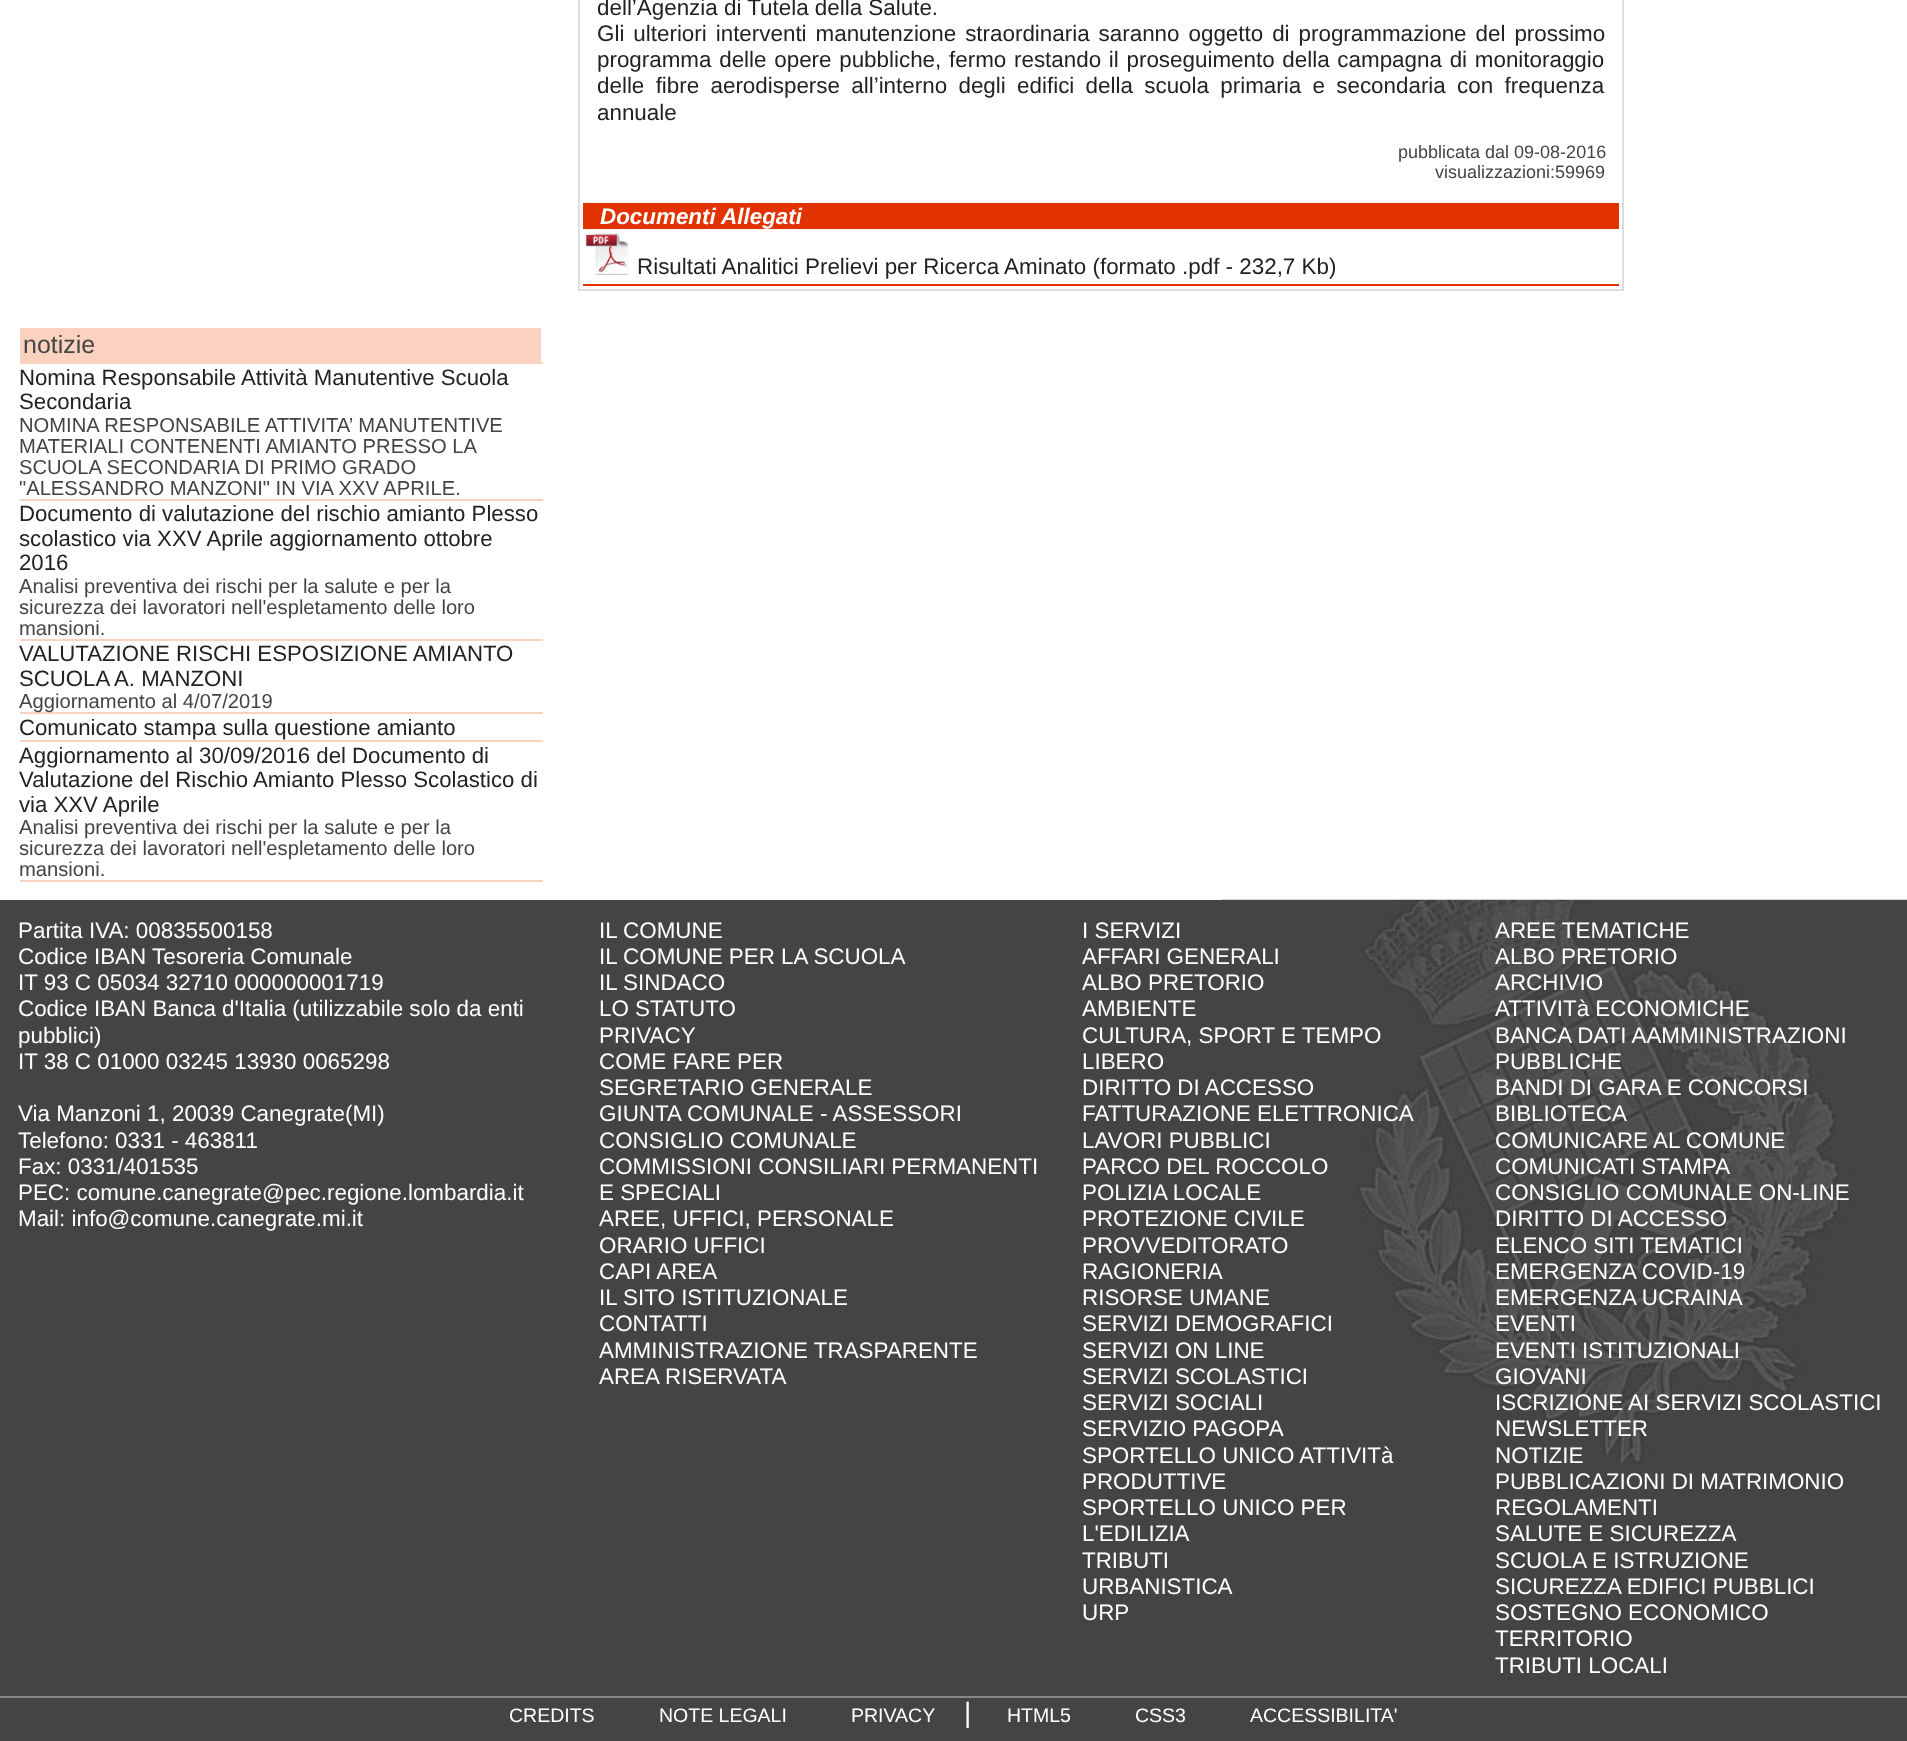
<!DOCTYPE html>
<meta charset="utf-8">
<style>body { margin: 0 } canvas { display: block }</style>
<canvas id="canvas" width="1907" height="1741"></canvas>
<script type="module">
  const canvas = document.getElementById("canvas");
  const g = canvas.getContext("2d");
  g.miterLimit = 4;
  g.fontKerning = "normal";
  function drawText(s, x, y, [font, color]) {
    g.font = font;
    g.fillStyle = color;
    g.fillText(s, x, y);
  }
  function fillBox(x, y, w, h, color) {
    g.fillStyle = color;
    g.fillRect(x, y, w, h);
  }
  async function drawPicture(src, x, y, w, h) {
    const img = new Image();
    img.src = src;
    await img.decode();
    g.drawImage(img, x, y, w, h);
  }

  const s1 = ["22.4px Liberation Sans", "#222222"];
  const s2 = ["18px Liberation Sans", "#444444"];
  const s3 = ["italic bold 22.4px Liberation Sans", "#FFFFFF"];
  const s4 = ["25px Liberation Sans", "#444444"];
  const s5 = ["22.2px Liberation Sans", "#222222"];
  const s6 = ["20.2px Liberation Sans", "#444444"];
  const s7 = ["22.4px Liberation Sans", "#FFFFFF"];
  const s8 = ["19.5px Liberation Sans", "#FFFFFF"];
  const s9 = ["28px Liberation Sans", "#FFFFFF"];

  fillBox(0, 0, 1907, 1741, "#FFFFFF");
  g.strokeStyle = "#DDDDDD";
  g.lineWidth = 2;
  g.strokeRect(579, -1, 1044, 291);
  drawText("dell’Agenzia di Tutela della Salute.", 597, 15, s1);
  g.wordSpacing = "2.75px";
  drawText("Gli ulteriori interventi manutenzione straordinaria saranno oggetto di programmazione del prossimo", 597, 41, s1);
  g.wordSpacing = "1.5px";
  drawText("programma delle opere pubbliche, fermo restando il proseguimento della campagna di monitoraggio", 597, 67, s1);
  g.wordSpacing = "5.1px";
  drawText("delle fibre aerodisperse all’interno degli edifici della scuola primaria e secondaria con frequenza", 597, 93, s1);
  g.wordSpacing = "0px";
  drawText("annuale", 597, 120, s1);
  drawText("pubblicata dal 09-08-2016", 1398, 158, s2);
  drawText("visualizzazioni:59969", 1435, 178, s2);
  fillBox(583, 203, 1036, 26, "#E13200");
  drawText("Documenti Allegati", 600, 224, s3);
  fillBox(583, 284, 1036, 2, "#E13200");
  await drawPicture("pic1.png", 586, 233, 43, 42);
  drawText("Risultati Analitici Prelievi per Ricerca Aminato (formato .pdf - 232,7 Kb)", 637, 274, s1);
  fillBox(20, 328, 521, 34, "#FBD1BF");
  fillBox(18, 362, 525, 2, "#FBD1BF");
  fillBox(18, 362, 2, 2, "#FFFFFF");
  drawText("notizie", 23, 353, s4);
  fillBox(18, 499, 525, 2, "#FBD1BF");
  fillBox(18, 499, 2, 2, "#FFFFFF");
  drawText("Nomina Responsabile Attività Manutentive Scuola", 19, 385, s5);
  drawText("Secondaria", 19, 409, s5);
  drawText("NOMINA RESPONSABILE ATTIVITA’ MANUTENTIVE", 19, 432, s6);
  drawText("MATERIALI CONTENENTI AMIANTO PRESSO LA", 19, 453, s6);
  drawText("SCUOLA SECONDARIA DI PRIMO GRADO", 19, 474, s6);
  drawText("\"ALESSANDRO MANZONI\" IN VIA XXV APRILE.", 19, 495, s6);
  fillBox(18, 639, 525, 2, "#FBD1BF");
  fillBox(18, 639, 2, 2, "#FFFFFF");
  drawText("Documento di valutazione del rischio amianto Plesso", 19, 521, s5);
  drawText("scolastico via XXV Aprile aggiornamento ottobre", 19, 546, s5);
  drawText("2016", 19, 570, s5);
  drawText("Analisi preventiva dei rischi per la salute e per la", 19, 593, s6);
  drawText("sicurezza dei lavoratori nell'espletamento delle loro", 19, 614, s6);
  drawText("mansioni.", 19, 635, s6);
  fillBox(18, 712, 525, 2, "#FBD1BF");
  fillBox(18, 712, 2, 2, "#FFFFFF");
  drawText("VALUTAZIONE RISCHI ESPOSIZIONE AMIANTO", 19, 661, s5);
  drawText("SCUOLA", 19, 686, s5);
  drawText("A. MANZONI", 114, 686, s5);
  drawText("Aggiornamento al 4/07/2019", 19, 708, s6);
  fillBox(18, 740, 525, 2, "#FBD1BF");
  fillBox(18, 740, 2, 2, "#FFFFFF");
  drawText("Comunicato stampa sulla questione amianto", 19, 735, s5);
  fillBox(18, 880, 525, 2, "#FBD1BF");
  fillBox(18, 880, 2, 2, "#FFFFFF");
  drawText("Aggiornamento al 30/09/2016 del Documento di", 19, 763, s5);
  drawText("Valutazione del Rischio Amianto Plesso Scolastico di", 19, 787, s5);
  drawText("via XXV Aprile", 19, 812, s5);
  drawText("Analisi preventiva dei rischi per la salute e per la", 19, 834, s6);
  drawText("sicurezza dei lavoratori nell'espletamento delle loro", 19, 855, s6);
  drawText("mansioni.", 19, 876, s6);
  fillBox(0, 900, 1907, 796, "#444444");
  await drawPicture("pic2.png", 1221, 899, 686, 571);
  drawText("Partita IVA: 00835500158", 18, 938, s7);
  drawText("Codice IBAN Tesoreria Comunale", 18, 964, s7);
  drawText("IT 93 C 05034 32710 000000001719", 18, 990, s7);
  drawText("Codice IBAN Banca d'Italia (utilizzabile solo da enti", 18, 1016, s7);
  drawText("pubblici)", 18, 1043, s7);
  drawText("IT 38 C 01000 03245 13930 0065298", 18, 1069, s7);
  drawText("Via Manzoni 1, 20039 Canegrate(MI)", 18, 1121, s7);
  drawText("Telefono: 0331 - 463811", 18, 1148, s7);
  drawText("Fax: 0331/401535", 18, 1174, s7);
  drawText("PEC: comune.canegrate@pec.regione.lombardia.it", 18, 1200, s7);
  drawText("Mail: info@comune.canegrate.mi.it", 18, 1226, s7);
  drawText("IL COMUNE", 599, 938, s7);
  drawText("IL COMUNE PER LA SCUOLA", 599, 964, s7);
  drawText("IL SINDACO", 599, 990, s7);
  drawText("LO STATUTO", 599, 1016, s7);
  drawText("PRIVACY", 599, 1043, s7);
  drawText("COME FARE PER", 599, 1069, s7);
  drawText("SEGRETARIO GENERALE", 599, 1095, s7);
  drawText("GIUNTA COMUNALE - ASSESSORI", 599, 1121, s7);
  drawText("CONSIGLIO COMUNALE", 599, 1148, s7);
  drawText("COMMISSIONI CONSILIARI PERMANENTI", 599, 1174, s7);
  drawText("E SPECIALI", 599, 1200, s7);
  drawText("AREE, UFFICI, PERSONALE", 599, 1226, s7);
  drawText("ORARIO UFFICI", 599, 1253, s7);
  drawText("CAPI AREA", 599, 1279, s7);
  drawText("IL SITO ISTITUZIONALE", 599, 1305, s7);
  drawText("CONTATTI", 599, 1331, s7);
  drawText("AMMINISTRAZIONE TRASPARENTE", 599, 1358, s7);
  drawText("AREA RISERVATA", 599, 1384, s7);
  drawText("I SERVIZI", 1082, 938, s7);
  drawText("AFFARI GENERALI", 1082, 964, s7);
  drawText("ALBO PRETORIO", 1082, 990, s7);
  drawText("AMBIENTE", 1082, 1016, s7);
  drawText("CULTURA, SPORT E TEMPO", 1082, 1043, s7);
  drawText("LIBERO", 1082, 1069, s7);
  drawText("DIRITTO DI ACCESSO", 1082, 1095, s7);
  drawText("FATTURAZIONE ELETTRONICA", 1082, 1121, s7);
  drawText("LAVORI PUBBLICI", 1082, 1148, s7);
  drawText("PARCO DEL ROCCOLO", 1082, 1174, s7);
  drawText("POLIZIA LOCALE", 1082, 1200, s7);
  drawText("PROTEZIONE CIVILE", 1082, 1226, s7);
  drawText("PROVVEDITORATO", 1082, 1253, s7);
  drawText("RAGIONERIA", 1082, 1279, s7);
  drawText("RISORSE UMANE", 1082, 1305, s7);
  drawText("SERVIZI DEMOGRAFICI", 1082, 1331, s7);
  drawText("SERVIZI ON LINE", 1082, 1358, s7);
  drawText("SERVIZI SCOLASTICI", 1082, 1384, s7);
  drawText("SERVIZI SOCIALI", 1082, 1410, s7);
  drawText("SERVIZIO PAGOPA", 1082, 1436, s7);
  drawText("SPORTELLO UNICO ATTIVITà", 1082, 1463, s7);
  drawText("PRODUTTIVE", 1082, 1489, s7);
  drawText("SPORTELLO UNICO PER", 1082, 1515, s7);
  drawText("L'EDILIZIA", 1082, 1541, s7);
  drawText("TRIBUTI", 1082, 1568, s7);
  drawText("URBANISTICA", 1082, 1594, s7);
  drawText("URP", 1082, 1620, s7);
  drawText("AREE TEMATICHE", 1495, 938, s7);
  drawText("ALBO PRETORIO", 1495, 964, s7);
  drawText("ARCHIVIO", 1495, 990, s7);
  drawText("ATTIVITà ECONOMICHE", 1495, 1016, s7);
  drawText("BANCA DATI AAMMINISTRAZIONI", 1495, 1043, s7);
  drawText("PUBBLICHE", 1495, 1069, s7);
  drawText("BANDI DI GARA E CONCORSI", 1495, 1095, s7);
  drawText("BIBLIOTECA", 1495, 1121, s7);
  drawText("COMUNICARE AL COMUNE", 1495, 1148, s7);
  drawText("COMUNICATI STAMPA", 1495, 1174, s7);
  drawText("CONSIGLIO COMUNALE ON-LINE", 1495, 1200, s7);
  drawText("DIRITTO DI ACCESSO", 1495, 1226, s7);
  drawText("ELENCO SITI TEMATICI", 1495, 1253, s7);
  drawText("EMERGENZA COVID-19", 1495, 1279, s7);
  drawText("EMERGENZA UCRAINA", 1495, 1305, s7);
  drawText("EVENTI", 1495, 1331, s7);
  drawText("EVENTI ISTITUZIONALI", 1495, 1358, s7);
  drawText("GIOVANI", 1495, 1384, s7);
  drawText("ISCRIZIONE AI SERVIZI SCOLASTICI", 1495, 1410, s7);
  drawText("NEWSLETTER", 1495, 1436, s7);
  drawText("NOTIZIE", 1495, 1463, s7);
  drawText("PUBBLICAZIONI DI MATRIMONIO", 1495, 1489, s7);
  drawText("REGOLAMENTI", 1495, 1515, s7);
  drawText("SALUTE E SICUREZZA", 1495, 1541, s7);
  drawText("SCUOLA E ISTRUZIONE", 1495, 1568, s7);
  drawText("SICUREZZA EDIFICI PUBBLICI", 1495, 1594, s7);
  drawText("SOSTEGNO ECONOMICO", 1495, 1620, s7);
  drawText("TERRITORIO", 1495, 1646, s7);
  drawText("TRIBUTI LOCALI", 1495, 1673, s7);
  fillBox(0, 1698, 1907, 43, "#444444");
  fillBox(0, 1696, 1907, 2, "#888888");
  drawText("CREDITS", 509, 1722, s8);
  drawText("NOTE LEGALI", 659, 1722, s8);
  drawText("PRIVACY", 851, 1722, s8);
  drawText("|", 964, 1722, s9);
  drawText("HTML5", 1007, 1722, s8);
  drawText("CSS3", 1135, 1722, s8);
  drawText("ACCESSIBILITA'", 1250, 1722, s8);
</script>
